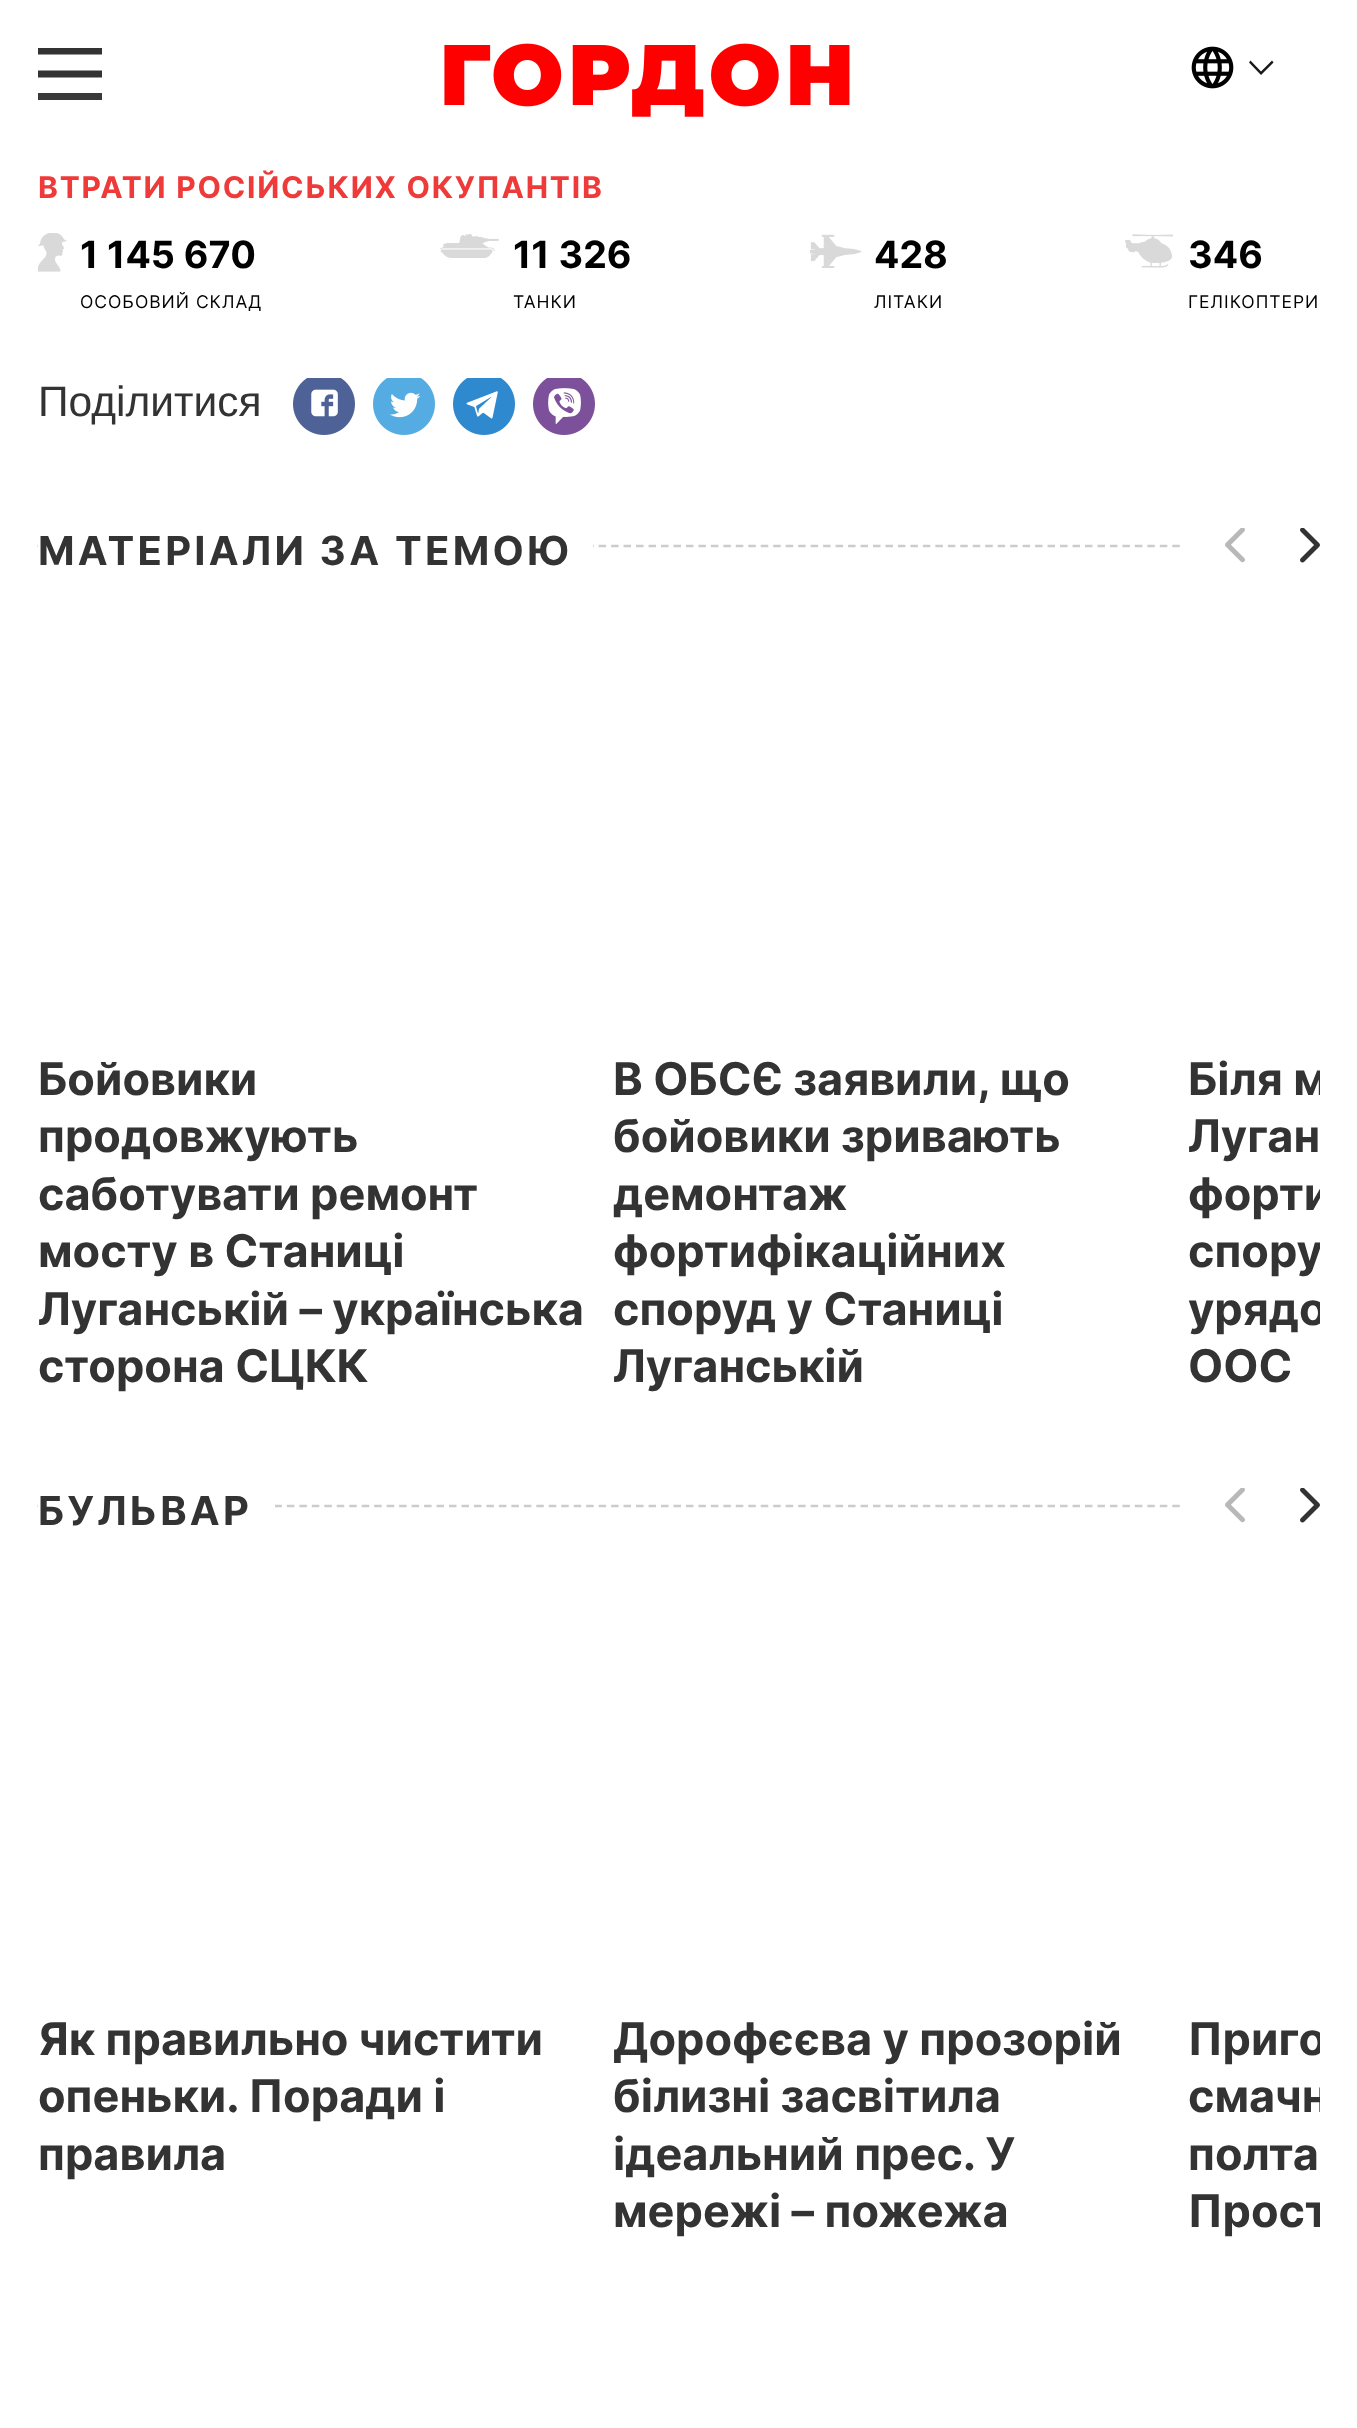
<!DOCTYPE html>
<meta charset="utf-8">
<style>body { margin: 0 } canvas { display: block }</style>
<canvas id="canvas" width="1357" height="2428"></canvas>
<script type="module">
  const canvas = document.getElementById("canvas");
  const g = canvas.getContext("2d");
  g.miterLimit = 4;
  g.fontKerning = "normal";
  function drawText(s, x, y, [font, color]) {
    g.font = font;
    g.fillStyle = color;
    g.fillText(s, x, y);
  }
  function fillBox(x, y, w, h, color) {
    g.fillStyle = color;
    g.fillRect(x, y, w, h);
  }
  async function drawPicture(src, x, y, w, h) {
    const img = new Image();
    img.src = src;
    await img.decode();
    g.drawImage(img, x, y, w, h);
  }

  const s1 = ["bold 30px Inter", "#EF3A3A"];
  const s2 = ["bold 37.5px Inter", "#000000"];
  const s3 = ["17.5px Inter", "#000000"];
  const s4 = ["42.5px Liberation Sans", "#333333"];
  const s5 = ["bold 40px Inter", "#333333"];
  const s6 = ["bold 45px Inter", "#333333"];

  fillBox(0, 0, 1357, 2428, "#FFFFFF");
  g.save();
  g.beginPath();
  g.rect(38, 48, 65, 52);
  g.clip();
  g.beginPath();
  g.moveTo(38, 51);
  g.lineTo(102, 51);
  g.strokeStyle = "#333333";
  g.lineWidth = 6.8;
  g.stroke();
  g.restore();
  g.beginPath();
  g.moveTo(38, 74);
  g.lineTo(102, 74);
  g.strokeStyle = "#333333";
  g.lineWidth = 6.8;
  g.stroke();
  fillBox(38, 93, 64, 7, "#393939");
  await drawPicture("pic1.png", 444, 43, 406, 74);
  await drawPicture("pic2.png", 1191, 46, 43, 43);
  g.fillStyle = "#1A1A1A";
  g.beginPath();
  g.moveTo(1273.5, 62.5);
  g.lineTo(1261, 75);
  g.lineTo(1261, 71.5);
  g.lineTo(1272, 60.5);
  g.closePath();
  g.moveTo(1261, 75);
  g.lineTo(1249, 62.5);
  g.lineTo(1250.5, 60.5);
  g.lineTo(1261, 71.5);
  g.closePath();
  g.fill();
  g.letterSpacing = "1.8px";
  drawText("ВТРАТИ РОСІЙСЬКИХ ОКУПАНТІВ", 38, 198, s1);
  await drawPicture("pic3.png", 38, 233, 29, 39);
  g.letterSpacing = "0px";
  drawText("1 145 670", 80, 268, s2);
  g.letterSpacing = "1px";
  drawText("ОСОБОВИЙ СКЛАД", 80, 308, s3);
  await drawPicture("pic4.png", 440, 234, 59, 24);
  g.letterSpacing = "0px";
  drawText("11 326", 513, 268, s2);
  g.letterSpacing = "1px";
  drawText("ТАНКИ", 513, 308, s3);
  await drawPicture("pic5.png", 810, 234, 52, 34);
  g.letterSpacing = "0px";
  drawText("428", 874, 268, s2);
  g.letterSpacing = "1px";
  drawText("ЛІТАКИ", 874, 308, s3);
  await drawPicture("pic6.png", 1125, 234, 48, 34);
  g.letterSpacing = "0px";
  drawText("346", 1188, 268, s2);
  g.letterSpacing = "1px";
  drawText("ГЕЛІКОПТЕРИ", 1188, 308, s3);
  g.letterSpacing = "0px";
  drawText("Поділитися", 38, 416, s4);
  await drawPicture("pic7.png", 293, 378, 62, 57);
  await drawPicture("pic8.png", 373, 378, 62, 57);
  await drawPicture("pic9.png", 453, 378, 62, 57);
  await drawPicture("pic10.png", 533, 378, 62, 57);
  g.beginPath();
  g.moveTo(37.5, 546);
  g.lineTo(1180, 546);
  g.strokeStyle = "#CCCCCC";
  g.lineWidth = 2.5;
  g.setLineDash([7.5, 4.97]);
  g.stroke();
  fillBox(38, 544, 555, 4, "#FFFFFF");
  g.letterSpacing = "3.25px";
  drawText("МАТЕРІАЛИ ЗА ТЕМОЮ", 38, 565, s5);
  await drawPicture("pic11.png", 1225, 528, 20, 35);
  await drawPicture("pic12.png", 1300, 528, 20, 35);
  g.letterSpacing = "0px";
  drawText("Бойовики", 38, 1095, s6);
  drawText("продовжують", 38, 1152, s6);
  drawText("саботувати ремонт", 38, 1210, s6);
  drawText("мосту в Станиці", 38, 1267, s6);
  drawText("Луганській – українська", 38, 1325, s6);
  drawText("сторона СЦКК", 38, 1382, s6);
  drawText("В ОБСЄ заявили, що", 613, 1095, s6);
  drawText("бойовики зривають", 613, 1152, s6);
  drawText("демонтаж", 613, 1210, s6);
  drawText("фортифікаційних", 613, 1267, s6);
  drawText("споруд у Станиці", 613, 1325, s6);
  drawText("Луганській", 613, 1382, s6);
  g.save();
  g.beginPath();
  g.rect(38, 618, 1282, 827);
  g.clip();
  drawText("Біля м", 1188, 1095, s6);
  g.restore();
  drawText("Луган", 1188, 1152, s6);
  g.save();
  g.beginPath();
  g.rect(38, 618, 1282, 827);
  g.clip();
  drawText("форти", 1188, 1210, s6);
  drawText("спору", 1188, 1267, s6);
  drawText("урядо", 1188, 1325, s6);
  g.restore();
  drawText("ООС", 1188, 1382, s6);
  g.beginPath();
  g.moveTo(37.5, 1506);
  g.lineTo(1180, 1506);
  g.stroke();
  fillBox(38, 1504, 237, 4, "#FFFFFF");
  g.letterSpacing = "3.25px";
  drawText("БУЛЬВАР", 38, 1525, s5);
  await drawPicture("pic11.png", 1225, 1488, 20, 35);
  await drawPicture("pic12.png", 1300, 1488, 20, 35);
  g.letterSpacing = "0px";
  drawText("Як правильно чистити", 38, 2055, s6);
  drawText("опеньки. Поради і", 38, 2112, s6);
  drawText("правила", 38, 2170, s6);
  drawText("Дорофєєва у прозорій", 613, 2055, s6);
  drawText("білизні засвітила", 613, 2112, s6);
  drawText("ідеальний прес. У", 613, 2170, s6);
  drawText("мережі – пожежа", 613, 2227, s6);
  g.save();
  g.beginPath();
  g.rect(38, 1578, 1282, 770);
  g.clip();
  drawText("Приго", 1188, 2055, s6);
  drawText("смачн", 1188, 2112, s6);
  g.restore();
  g.wordSpacing = "-2px";
  drawText("полта", 1188, 2170, s6);
  g.save();
  g.beginPath();
  g.rect(38, 1578, 1282, 770);
  g.clip();
  g.wordSpacing = "0px";
  drawText("Прост", 1188, 2227, s6);
  g.restore();
</script>
